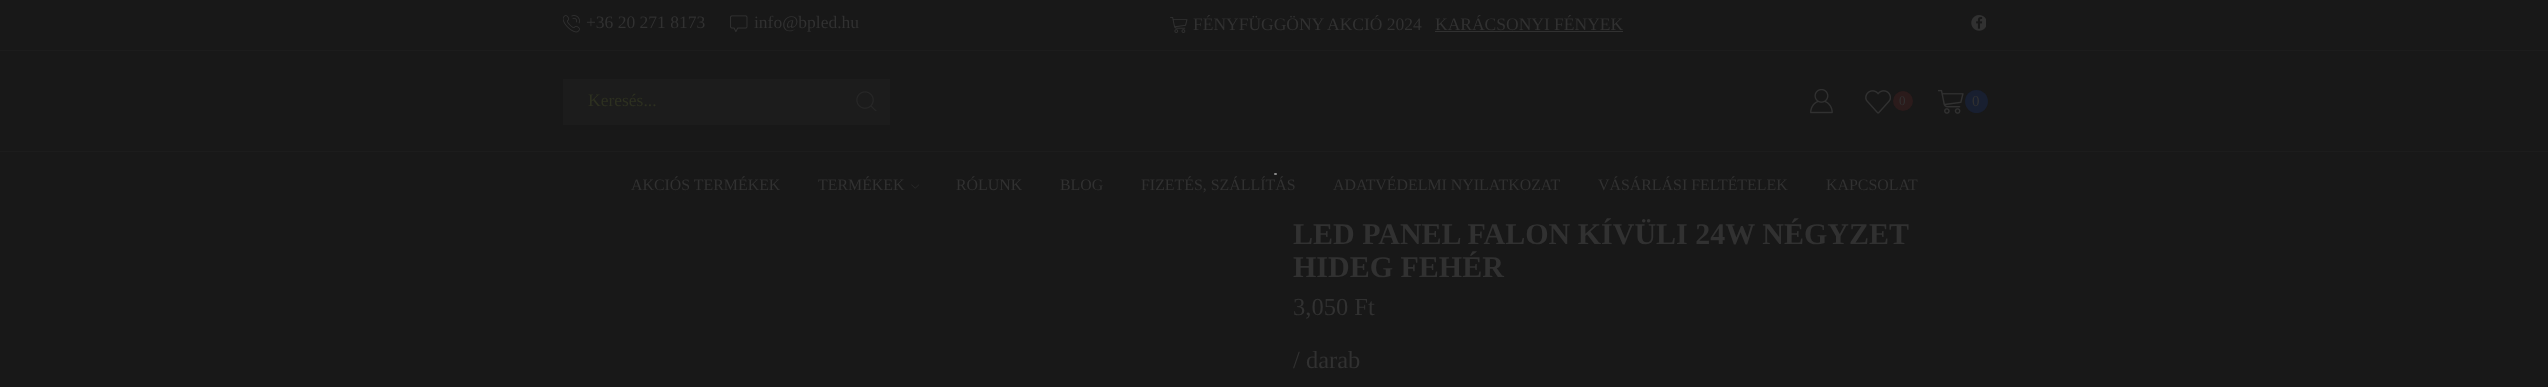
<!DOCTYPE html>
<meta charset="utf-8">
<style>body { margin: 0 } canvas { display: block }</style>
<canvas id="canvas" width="2548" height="387"></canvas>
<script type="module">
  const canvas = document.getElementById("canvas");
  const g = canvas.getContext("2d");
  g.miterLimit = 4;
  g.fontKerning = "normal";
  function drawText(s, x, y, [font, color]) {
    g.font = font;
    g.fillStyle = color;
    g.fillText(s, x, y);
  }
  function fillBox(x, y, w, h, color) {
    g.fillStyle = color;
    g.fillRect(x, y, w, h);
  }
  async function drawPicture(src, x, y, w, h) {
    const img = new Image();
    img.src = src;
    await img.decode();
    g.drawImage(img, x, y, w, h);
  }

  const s1 = ["17.5px Liberation Serif", "#313131"];
  const s2 = ["17.5px Liberation Serif", "#2D3020"];
  const s3 = ["13px Liberation Serif", "#313131"];
  const s4 = ["15px Liberation Serif", "#313131"];
  const s5 = ["15.9px Liberation Serif", "#313131"];
  const s6 = ["bold 30px Liberation Serif", "#313131"];
  const s7 = ["24.5px Liberation Serif", "#313131"];

  fillBox(0, 0, 2548, 387, "#181818");
  fillBox(0, 50, 2548, 1, "#1C1C1C");
  await drawPicture("pic1.png", 563, 15, 17, 18);
  drawText("+36 20 271 8173", 586, 28, s1);
  await drawPicture("pic2.png", 730, 15, 18, 18);
  drawText("info@bpled.hu", 754, 28, s1);
  await drawPicture("pic3.png", 1170, 17, 18, 16);
  drawText("FÉNYFÜGGÖNY AKCIÓ 2024", 1193, 30, s1);
  drawText("KARÁCSONYI FÉNYEK", 1435, 30, s1);
  fillBox(1435, 31, 188, 1, "#313131");
  await drawPicture("pic4.png", 1971, 15, 15, 16);
  fillBox(0, 151, 2548, 1, "#1C1C1C");
  fillBox(563, 79, 327, 46, "#1C1C1C");
  drawText("Keresés...", 588, 106, s2);
  await drawPicture("pic5.png", 856, 91, 21, 20);
  await drawPicture("pic6.png", 1810, 89, 23, 25);
  await drawPicture("pic7.png", 1865, 90, 26, 24);
  g.fillStyle = "#2B1B1B";
  g.beginPath();
  g.arc(1903, 101, 10, 0, Math.PI * 2);
  g.fill();
  drawText("0", 1899, 105, s3);
  await drawPicture("pic8.png", 1938, 89, 26, 25);
  g.fillStyle = "#181F30";
  g.beginPath();
  g.arc(1976.5, 101.5, 11.5, 0, Math.PI * 2);
  g.fill();
  drawText("0", 1972, 106, s4);
  drawText("AKCIÓS TERMÉKEK", 631, 190, s5);
  drawText("TERMÉKEK", 818, 190, s5);
  await drawPicture("pic9.png", 911, 184, 8, 5);
  drawText("RÓLUNK", 956, 190, s5);
  drawText("BLOG", 1060, 190, s5);
  drawText("FIZETÉS, SZÁLLÍTÁS", 1141, 190, s5);
  drawText("ADATVÉDELMI NYILATKOZAT", 1333, 190, s5);
  drawText("VÁSÁRLÁSI FELTÉTELEK", 1598, 190, s5);
  drawText("KAPCSOLAT", 1826, 190, s5);
  drawText("LED PANEL FALON KÍVÜLI 24W NÉGYZET", 1293, 244, s6);
  drawText("HIDEG FEHÉR", 1293, 277, s6);
  drawText("3,050 Ft", 1293, 315, s7);
  drawText("/ darab", 1293, 368, s7);
  g.beginPath();
  g.moveTo(1275, 174);
  g.lineTo(1276, 174);
  g.strokeStyle = "#888888";
  g.lineWidth = 2;
  g.lineCap = "round";
  g.stroke();
</script>
